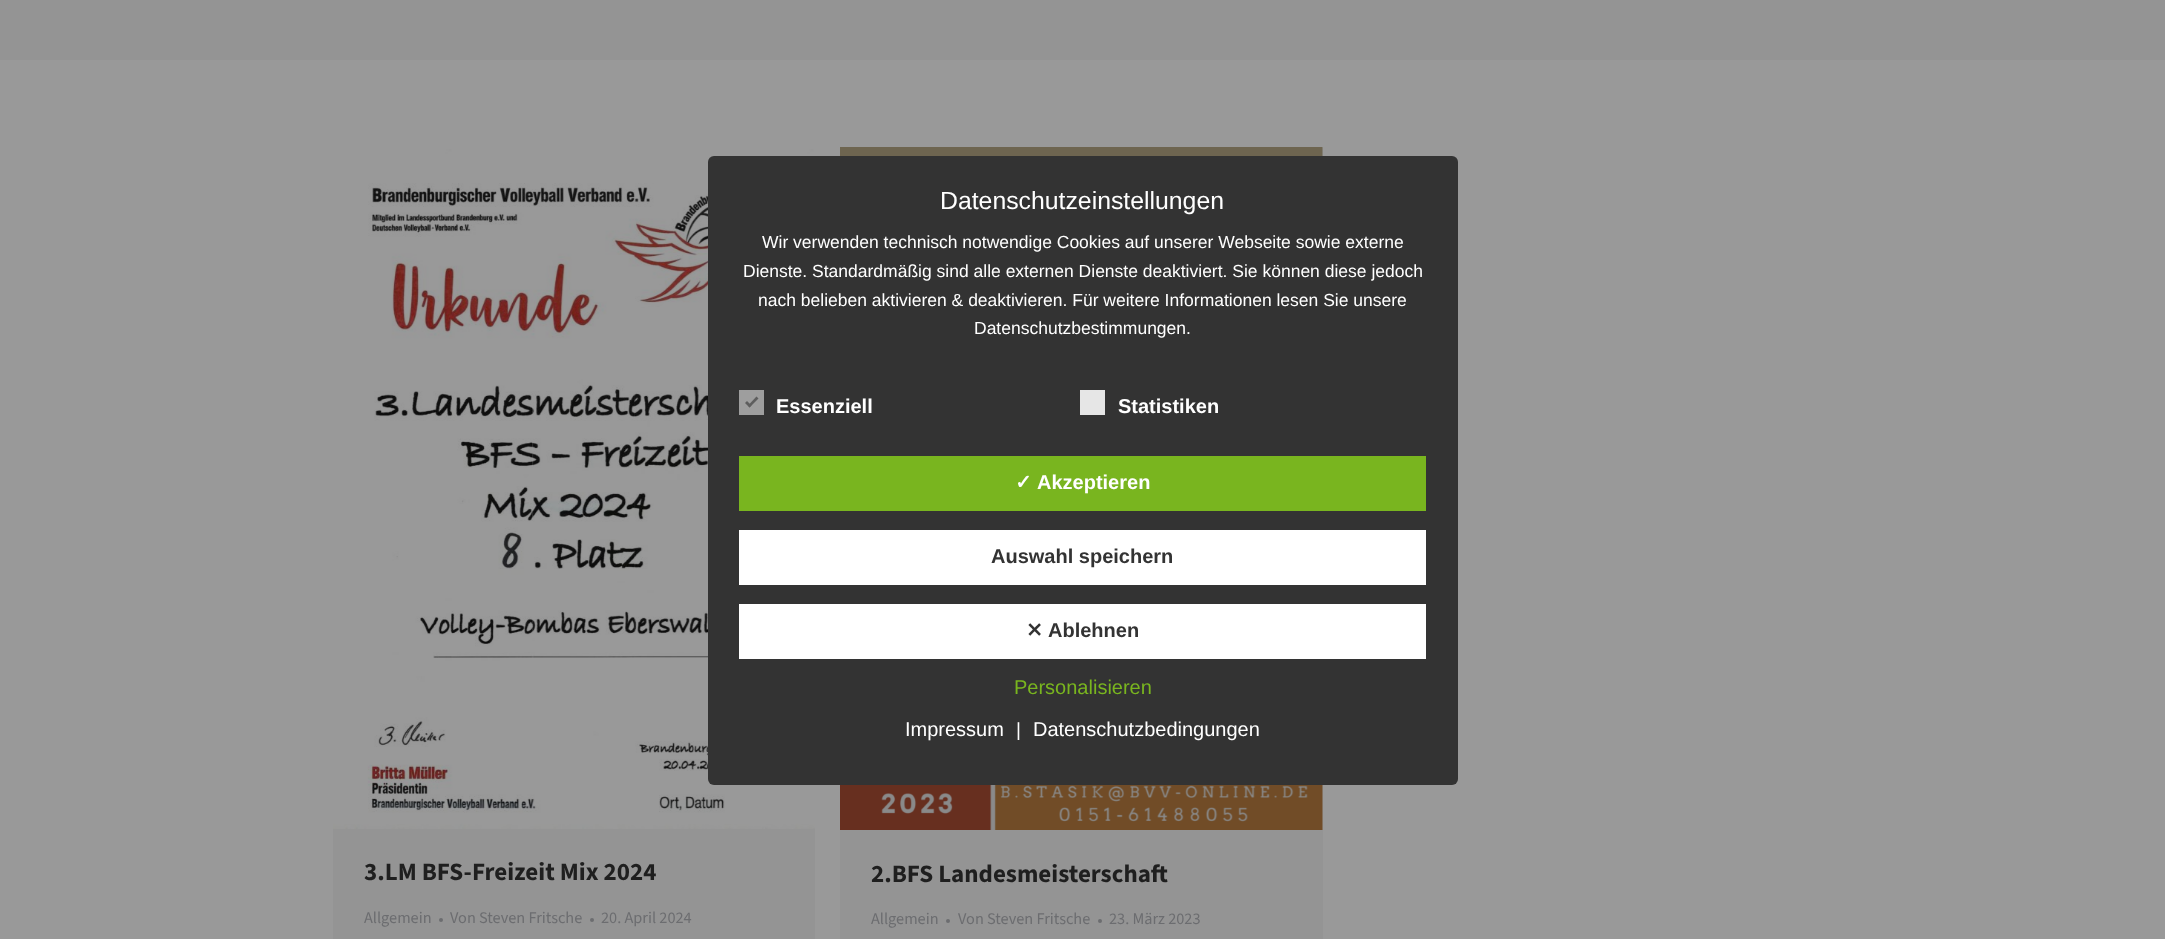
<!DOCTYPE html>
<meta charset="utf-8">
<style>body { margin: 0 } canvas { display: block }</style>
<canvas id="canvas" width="2165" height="939"></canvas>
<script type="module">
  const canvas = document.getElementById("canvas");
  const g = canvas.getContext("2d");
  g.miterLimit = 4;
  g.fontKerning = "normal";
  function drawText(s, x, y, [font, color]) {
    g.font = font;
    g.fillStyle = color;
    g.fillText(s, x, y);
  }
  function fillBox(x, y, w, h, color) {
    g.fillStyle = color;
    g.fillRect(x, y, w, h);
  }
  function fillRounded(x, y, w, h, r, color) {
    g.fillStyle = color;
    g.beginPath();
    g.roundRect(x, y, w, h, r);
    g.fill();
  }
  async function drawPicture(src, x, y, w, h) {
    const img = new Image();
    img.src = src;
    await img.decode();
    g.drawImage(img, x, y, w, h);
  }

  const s1 = ["24.8px Liberation Sans", "#FFFFFF"];
  const s2 = ["17.5px Liberation Sans", "#FFFFFF"];
  const s3 = ["bold 20px Liberation Sans", "#FFFFFF"];
  const s4 = ["bold 20px DejaVu Sans", "#FFFFFF"];
  const s5 = ["bold 20px Liberation Sans", "#333333"];
  const s6 = ["bold 20px DejaVu Sans", "#333333"];
  const s7 = ["20px Liberation Sans", "#79B51F"];
  const s8 = ["20px Liberation Sans", "#FFFFFF"];
  const s9 = ["19px Liberation Sans", "#FFFFFF"];
  const s10 = ["bold 25px 'Source Sans 3'", "#1F1F1F"];
  const s11 = ["16.25px 'Source Sans 3'", "#6C6D70"];

  fillBox(0, 0, 2165, 939, "#999999");
  await drawPicture("pic1.png", 333, 148, 482, 681);
  fillBox(840, 148, 483, 791, "#949494");
  await drawPicture("pic2.png", 840, 147, 483, 683);
  fillRounded(708, 156, 750, 629, 6, "#333333");
  drawText("Datenschutzeinstellungen", 940, 209, s1);
  drawText("Wir verwenden technisch notwendige Cookies auf unserer Webseite sowie externe", 762, 248, s2);
  drawText("Dienste. Standardmäßig sind alle externen Dienste deaktiviert. Sie können diese jedoch", 743, 277, s2);
  drawText("nach belieben aktivieren & deaktivieren. Für weitere Informationen lesen Sie unsere", 758, 306, s2);
  drawText("Datenschutzbestimmungen.", 974, 334, s2);
  fillBox(739, 390, 25, 25, "#9E9E9E");
  g.fillStyle = "#5E5E5E";
  g.beginPath();
  g.moveTo(756.5, 396.5);
  g.lineTo(758.5, 398.5);
  g.lineTo(749.5, 407.5);
  g.lineTo(748, 405.5);
  g.closePath();
  g.fill();
  g.beginPath();
  g.moveTo(747, 401);
  g.lineTo(751.5, 405.5);
  g.lineTo(749.5, 407.5);
  g.lineTo(745, 403);
  g.closePath();
  g.fill();
  drawText("Essenziell", 776, 413, s3);
  fillBox(1080, 390, 25, 25, "#E6E6E6");
  drawText("Statistiken", 1118, 413, s3);
  fillBox(739, 456, 687, 55, "#79B51F");
  drawText("✓", 1015, 489, s4);
  drawText("Akzeptieren", 1037, 489, s3);
  fillBox(739, 530, 687, 55, "#FFFFFF");
  drawText("Auswahl speichern", 991, 563, s5);
  fillBox(739, 604, 687, 55, "#FFFFFF");
  drawText("✕", 1026, 637, s6);
  drawText("Ablehnen", 1048, 637, s5);
  drawText("Personalisieren", 1014, 694, s7);
  drawText("Impressum", 905, 736, s8);
  drawText("|", 1016, 736, s9);
  drawText("Datenschutzbedingungen", 1033, 736, s8);
  fillBox(0, 0, 2165, 60, "#949494");
  fillBox(333, 829, 482, 110, "#949494");
  drawText("3.LM BFS-Freizeit Mix 2024", 364, 880, s10);
  drawText("Allgemein", 364, 923, s11);
  g.beginPath();
  g.arc(441, 920, 2, 0, Math.PI * 2);
  g.fill();
  drawText("Von Steven Fritsche", 450, 923, s11);
  g.beginPath();
  g.arc(592, 920, 2, 0, Math.PI * 2);
  g.fill();
  drawText("20. April 2024", 601, 923, s11);
  drawText("2.BFS Landesmeisterschaft", 871, 882, s10);
  drawText("Allgemein", 871, 924, s11);
  g.beginPath();
  g.arc(948, 921, 2, 0, Math.PI * 2);
  g.fill();
  drawText("Von Steven Fritsche", 958, 924, s11);
  g.beginPath();
  g.arc(1100, 921, 2, 0, Math.PI * 2);
  g.fill();
  drawText("23. März 2023", 1109, 924, s11);
</script>
